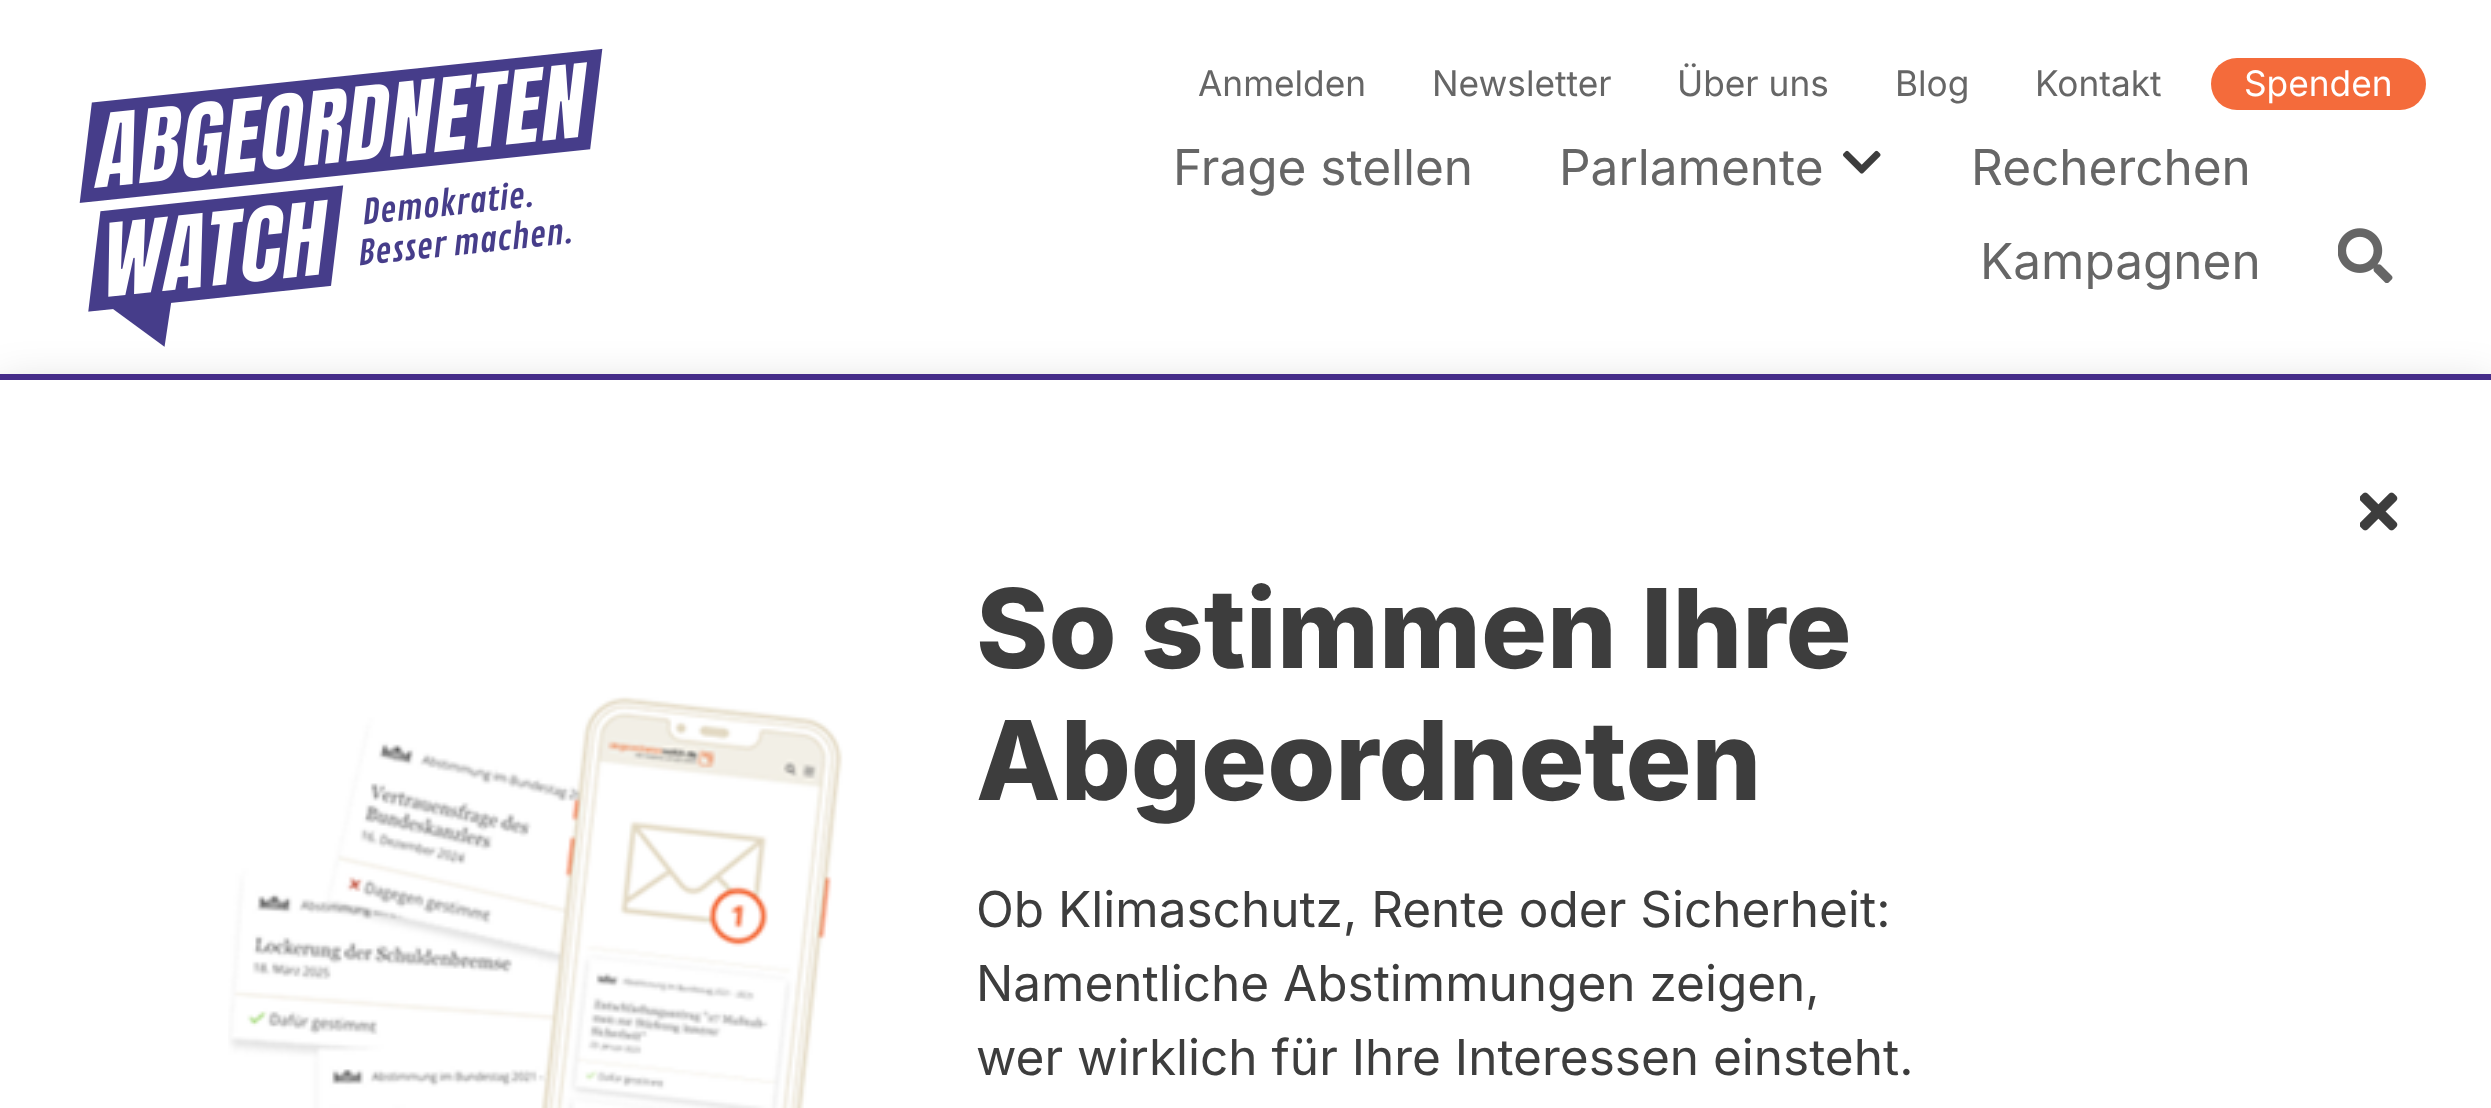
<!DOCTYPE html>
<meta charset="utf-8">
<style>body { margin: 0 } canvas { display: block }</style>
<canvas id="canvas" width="2491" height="1108"></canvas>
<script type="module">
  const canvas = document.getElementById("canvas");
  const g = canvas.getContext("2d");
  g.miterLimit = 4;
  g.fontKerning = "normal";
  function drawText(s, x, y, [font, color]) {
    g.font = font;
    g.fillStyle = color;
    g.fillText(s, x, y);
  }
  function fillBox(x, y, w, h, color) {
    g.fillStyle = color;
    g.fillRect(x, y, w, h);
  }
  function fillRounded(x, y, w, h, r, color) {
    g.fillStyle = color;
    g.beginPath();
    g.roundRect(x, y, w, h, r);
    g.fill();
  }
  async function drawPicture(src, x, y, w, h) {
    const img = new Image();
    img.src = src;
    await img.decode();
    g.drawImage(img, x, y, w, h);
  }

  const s1 = ["35.25px Inter", "#666666"];
  const s2 = ["35.25px Inter", "#FFFFFF"];
  const s3 = ["49.5px Inter", "#666666"];
  const s4 = ["800 110px Inter", "#3D3D3D"];
  const s5 = ["49.5px Inter", "#3D3D3D"];

  fillBox(0, 0, 2491, 1108, "#FFFFFF");
  g.fillStyle = "rgba(0, 0, 0, 0.16)";
  g.filter = "blur(22px)";
  g.beginPath();
  g.rect(0, 385, 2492, 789);
  g.fill();
  g.filter = "none";
  fillBox(0, 374, 2491, 6, "#462D8A");
  await drawPicture("pic1.png", 79, 48, 524, 299);
  drawText("Anmelden", 1198, 96, s1);
  drawText("Newsletter", 1432, 96, s1);
  drawText("Über uns", 1677, 96, s1);
  drawText("Blog", 1895, 96, s1);
  drawText("Kontakt", 2035, 96, s1);
  fillRounded(2211, 58, 215, 52, 26, "#F46B3B");
  drawText("Spenden", 2244, 96, s2);
  drawText("Frage stellen", 1173, 185, s3);
  drawText("Parlamente", 1559, 185, s3);
  await drawPicture("pic2.png", 1843, 150, 38, 24);
  drawText("Recherchen", 1971, 185, s3);
  drawText("Kampagnen", 1980, 279, s3);
  await drawPicture("pic3.png", 2338, 228, 55, 55);
  fillBox(0, 380, 2491, 728, "#FFFFFF");
  await drawPicture("pic4.png", 2360, 492, 38, 39);
  await drawPicture("pic5.png", 228, 696, 615, 412);
  drawText("So stimmen Ihre", 976, 668, s4);
  drawText("Abgeordneten", 976, 800, s4);
  drawText("Ob Klimaschutz, Rente oder Sicherheit:", 976, 927, s5);
  drawText("Namentliche Abstimmungen zeigen,", 976, 1001, s5);
  drawText("wer wirklich für Ihre Interessen einsteht.", 976, 1075, s5);
</script>
